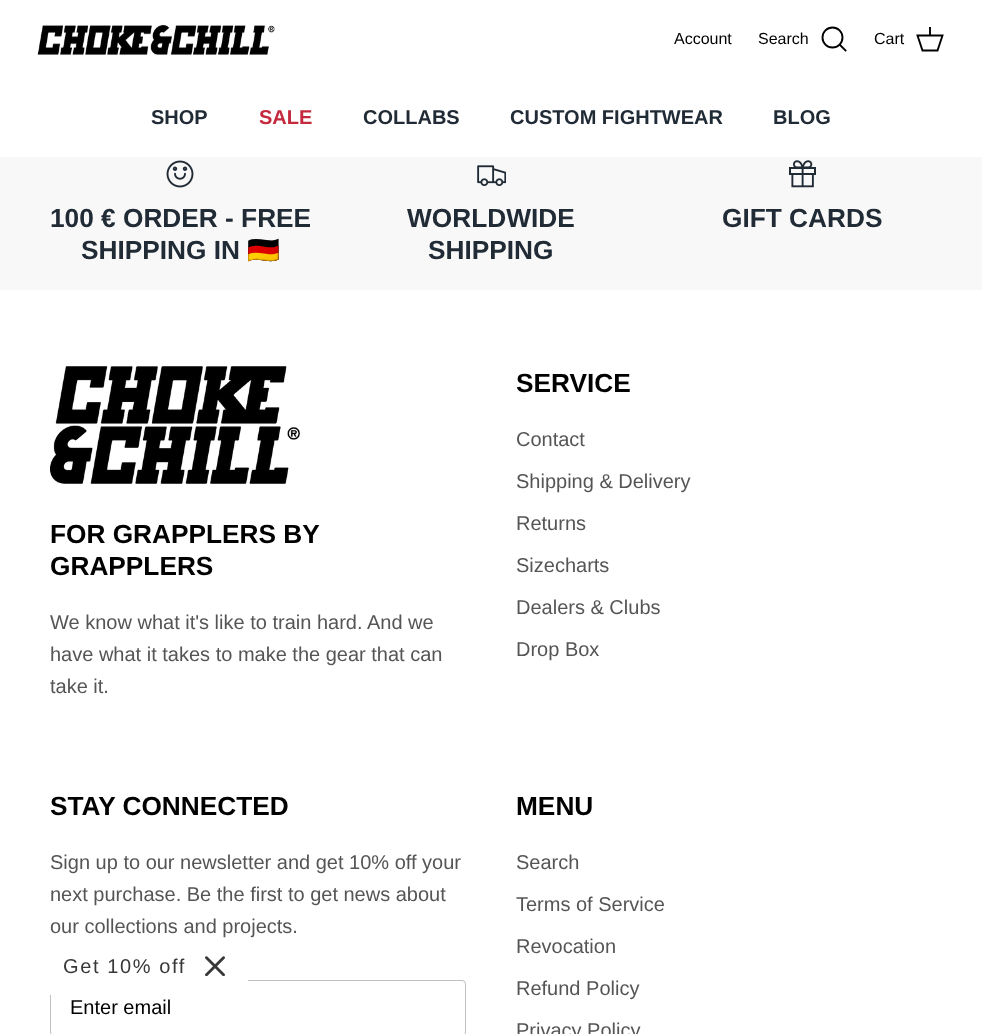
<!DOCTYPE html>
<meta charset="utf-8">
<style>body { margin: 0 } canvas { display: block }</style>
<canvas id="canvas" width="982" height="1034"></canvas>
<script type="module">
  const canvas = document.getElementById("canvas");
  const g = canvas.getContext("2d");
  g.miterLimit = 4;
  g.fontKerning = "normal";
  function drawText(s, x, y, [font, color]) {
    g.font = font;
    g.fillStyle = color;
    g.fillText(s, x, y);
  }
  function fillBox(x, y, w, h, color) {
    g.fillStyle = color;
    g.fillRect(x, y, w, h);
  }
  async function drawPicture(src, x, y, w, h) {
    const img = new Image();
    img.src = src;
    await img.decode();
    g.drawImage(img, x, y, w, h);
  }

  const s1 = ["16px Liberation Sans", "#000000"];
  const s2 = ["bold 20px Liberation Sans", "#212B36"];
  const s3 = ["bold 20px Liberation Sans", "#C4293D"];
  const s4 = ["bold 26.25px Liberation Sans", "#212B36"];
  const s5 = ["bold 26.25px Noto Color Emoji", "#212B36"];
  const s6 = ["bold 26.25px Liberation Sans", "#000000"];
  const s7 = ["20px Liberation Sans", "#555555"];
  const s8 = ["20px Liberation Sans", "#000000"];
  const s9 = ["20px Liberation Sans", "#383838"];

  fillBox(0, 0, 982, 1034, "#FFFFFF");
  await drawPicture("pic1.png", 37, 25, 238, 30);
  drawText("Account", 674, 44, s1);
  drawText("Search", 758, 44, s1);
  g.beginPath();
  g.arc(832.5, 37.5, 10, 0, Math.PI * 2);
  g.strokeStyle = "#000000";
  g.lineWidth = 1.9;
  g.stroke();
  g.beginPath();
  g.moveTo(840, 45);
  g.lineTo(845.5, 50.5);
  g.lineCap = "square";
  g.stroke();
  drawText("Cart", 874, 44, s1);
  g.beginPath();
  g.moveTo(917.5, 35.5);
  g.lineTo(942.5, 35.5);
  g.lineTo(937.5, 50.5);
  g.lineTo(922.5, 50.5);
  g.closePath();
  g.lineCap = "butt";
  g.stroke();
  fillBox(929, 27, 2, 9, "rgba(0, 0, 0, 0.95)");
  drawText("SHOP", 151, 124, s2);
  drawText("SALE", 259, 124, s3);
  drawText("COLLABS", 363, 124, s2);
  drawText("CUSTOM FIGHTWEAR", 510, 124, s2);
  drawText("BLOG", 773, 124, s2);
  fillBox(0, 157, 982, 133, "#F8F8F8");
  await drawPicture("pic2.png", 166, 160, 28, 28);
  drawText("100 € ORDER - FREE", 50, 227, s4);
  drawText("SHIPPING IN", 81, 259, s4);
  drawText("🇩🇪", 247, 259, s5);
  await drawPicture("pic3.png", 477, 165, 29, 21);
  drawText("WORLDWIDE", 407, 227, s4);
  drawText("SHIPPING", 428, 259, s4);
  await drawPicture("pic4.png", 789, 160, 27, 28);
  drawText("GIFT CARDS", 722, 227, s4);
  await drawPicture("pic5.png", 50, 366, 250, 118);
  drawText("FOR GRAPPLERS BY", 50, 543, s6);
  drawText("GRAPPLERS", 50, 575, s6);
  drawText("We know what it's like to train hard. And we", 50, 629, s7);
  drawText("have what it takes to make the gear that can", 50, 661, s7);
  drawText("take it.", 50, 693, s7);
  drawText("SERVICE", 516, 392, s6);
  drawText("Contact", 516, 446, s7);
  drawText("Shipping & Delivery", 516, 488, s7);
  drawText("Returns", 516, 530, s7);
  drawText("Sizecharts", 516, 572, s7);
  drawText("Dealers & Clubs", 516, 614, s7);
  drawText("Drop Box", 516, 656, s7);
  drawText("STAY CONNECTED", 50, 815, s6);
  drawText("Sign up to our newsletter and get 10% off your", 50, 869, s7);
  drawText("next purchase. Be the first to get news about", 50, 901, s7);
  drawText("our collections and projects.", 50, 933, s7);
  g.beginPath();
  g.roundRect(50.5, 980.5, 415, 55, 3.5);
  g.strokeStyle = "#BFBFBF";
  g.lineWidth = 1;
  g.stroke();
  drawText("Enter email", 70, 1014, s8);
  drawText("MENU", 516, 815, s6);
  drawText("Search", 516, 869, s7);
  drawText("Terms of Service", 516, 911, s7);
  drawText("Revocation", 516, 953, s7);
  drawText("Refund Policy", 516, 995, s7);
  drawText("Privacy Policy", 516, 1037, s7);
  fillBox(50, 980, 198, 15, "#FFFFFF");
  g.letterSpacing = "1.6px";
  drawText("Get 10% off", 63, 973, s9);
  await drawPicture("pic6.png", 205, 956, 20, 20);
</script>
